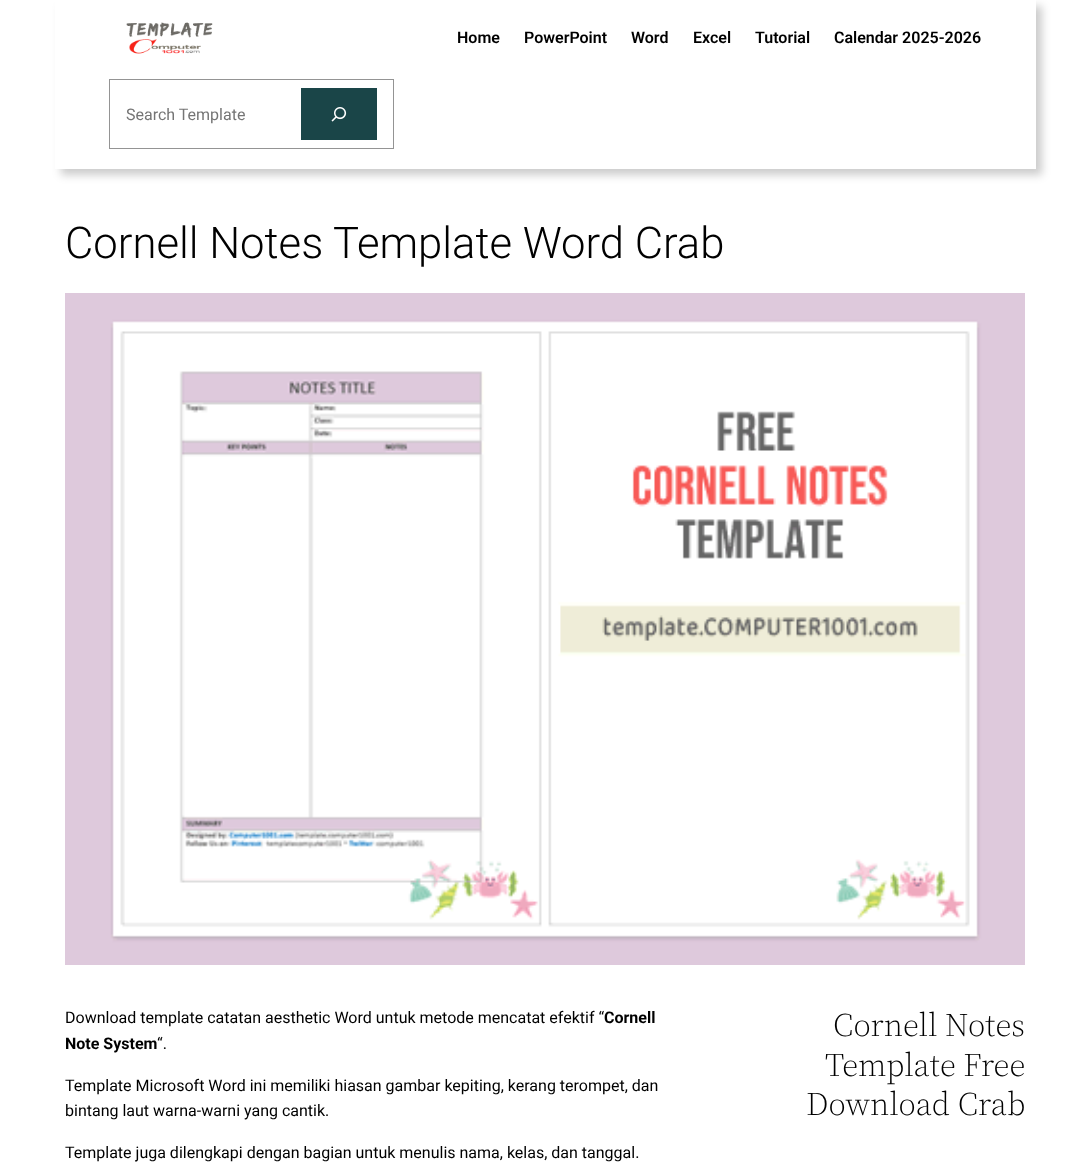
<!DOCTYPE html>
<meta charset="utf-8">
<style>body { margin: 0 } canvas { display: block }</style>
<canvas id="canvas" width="1090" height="1169"></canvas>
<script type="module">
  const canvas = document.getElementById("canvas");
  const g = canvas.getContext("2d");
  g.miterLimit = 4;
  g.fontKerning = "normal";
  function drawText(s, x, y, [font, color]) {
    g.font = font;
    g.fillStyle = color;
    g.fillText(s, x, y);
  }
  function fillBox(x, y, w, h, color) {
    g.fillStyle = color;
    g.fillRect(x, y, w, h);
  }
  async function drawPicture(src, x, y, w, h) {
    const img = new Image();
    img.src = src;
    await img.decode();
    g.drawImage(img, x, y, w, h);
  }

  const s1 = ["600 16px Roboto", "#000000"];
  const s2 = ["16px Roboto", "#757575"];
  const s3 = ["300 43.6px Roboto", "#000000"];
  const s4 = ["16px Roboto", "#000000"];
  const s5 = ["bold 16px Roboto", "#000000"];
  const s6 = ["300 32.75px 'Source Serif 4'", "#000000"];

  fillBox(0, 0, 1090, 1169, "#FFFFFF");
  g.save();
  g.beginPath();
  g.moveTo(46, 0);
  g.lineTo(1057, 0);
  g.lineTo(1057, 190);
  g.lineTo(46, 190);
  g.closePath();
  g.moveTo(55, 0);
  g.lineTo(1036, 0);
  g.lineTo(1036, 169);
  g.lineTo(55, 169);
  g.closePath();
  g.clip("evenodd");
  g.fillStyle = "rgba(0, 0, 0, 0.2)";
  g.filter = "blur(4.5px)";
  g.beginPath();
  g.rect(61, 6, 981, 169);
  g.fill();
  g.filter = "none";
  g.restore();
  await drawPicture("pic1.png", 126, 22, 87, 32);
  drawText("Home", 457, 43, s1);
  drawText("PowerPoint", 524, 43, s1);
  drawText("Word", 631, 43, s1);
  drawText("Excel", 693, 43, s1);
  drawText("Tutorial", 755, 43, s1);
  drawText("Calendar 2025-2026", 834, 43, s1);
  g.strokeStyle = "#949494";
  g.strokeRect(109.5, 79.5, 284, 69);
  drawText("Search Template", 126, 120, s2);
  fillBox(301, 88, 76, 52, "#1A4548");
  await drawPicture("pic2.png", 331, 107, 16, 15);
  drawText("Cornell Notes Template Word Crab", 65, 258, s3);
  await drawPicture("pic3.png", 65, 293, 960, 672);
  drawText("Download template catatan aesthetic Word untuk metode mencatat efektif “", 65, 1023, s4);
  drawText("Cornell", 604, 1023, s5);
  drawText("Note System", 65, 1049, s5);
  drawText("“.", 157, 1049, s4);
  drawText("Template Microsoft Word ini memiliki hiasan gambar kepiting, kerang terompet, dan", 65, 1091, s4);
  drawText("bintang laut warna-warni yang cantik.", 65, 1116, s4);
  drawText("Template juga dilengkapi dengan bagian untuk menulis nama, kelas, dan tanggal.", 65, 1158, s4);
  drawText("Cornell Notes", 833, 1036, s6);
  drawText("Template Free", 825, 1076, s6);
  drawText("Download Crab", 806, 1115, s6);
</script>
